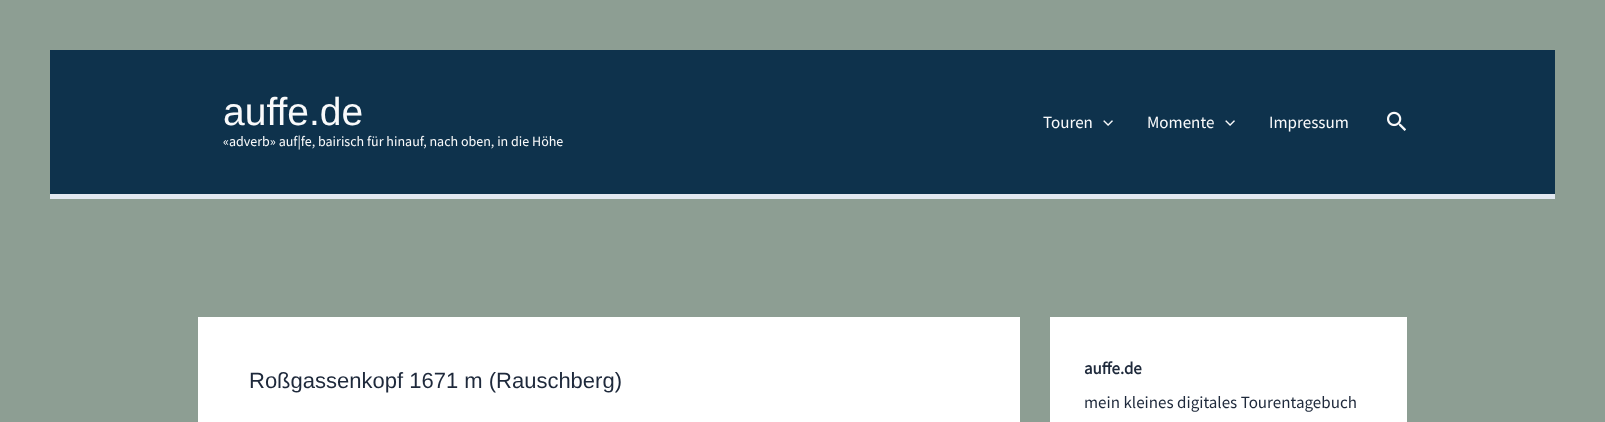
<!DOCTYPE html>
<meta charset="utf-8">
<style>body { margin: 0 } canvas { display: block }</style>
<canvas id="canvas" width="1605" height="422"></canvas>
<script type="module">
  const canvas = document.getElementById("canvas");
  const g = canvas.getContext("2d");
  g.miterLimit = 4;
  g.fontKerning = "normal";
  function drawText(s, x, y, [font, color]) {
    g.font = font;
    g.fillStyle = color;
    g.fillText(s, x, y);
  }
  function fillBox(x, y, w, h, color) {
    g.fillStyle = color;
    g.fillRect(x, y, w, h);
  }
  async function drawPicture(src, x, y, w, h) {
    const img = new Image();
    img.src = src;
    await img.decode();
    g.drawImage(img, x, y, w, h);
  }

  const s1 = ["39px Liberation Sans", "#F9FAFB"];
  const s2 = ["14px Source Sans Pro", "#F9FAFB"];
  const s3 = ["17px Source Sans Pro", "#F9FAFB"];
  const s4 = ["22px Liberation Sans", "#1E293B"];
  const s5 = ["bold 17px Source Sans Pro", "#1E293B"];
  const s6 = ["17px Source Sans Pro", "#1E293B"];

  fillBox(0, 0, 1605, 422, "#8D9E93");
  fillBox(50, 50, 1505, 144, "#0E324C");
  fillBox(50, 194, 1505, 5, "#E2E8F0");
  drawText("auffe.de", 223, 125, s1);
  drawText("«adverb» auf|fe, bairisch für hinauf, nach oben, in die Höhe", 223, 146, s2);
  drawText("Touren", 1043, 128, s3);
  await drawPicture("pic1.png", 1103, 120, 10, 6);
  drawText("Momente", 1147, 128, s3);
  await drawPicture("pic1.png", 1225, 120, 10, 6);
  drawText("Impressum", 1269, 128, s3);
  await drawPicture("pic2.png", 1387, 111, 19, 20);
  fillBox(198, 317, 822, 105, "#FFFFFF");
  drawText("Roßgassenkopf 1671 m (Rauschberg)", 249, 388, s4);
  fillBox(1050, 317, 357, 105, "#FFFFFF");
  drawText("auffe.de", 1084, 374, s5);
  drawText("mein kleines digitales Tourentagebuch", 1084, 408, s6);
</script>
